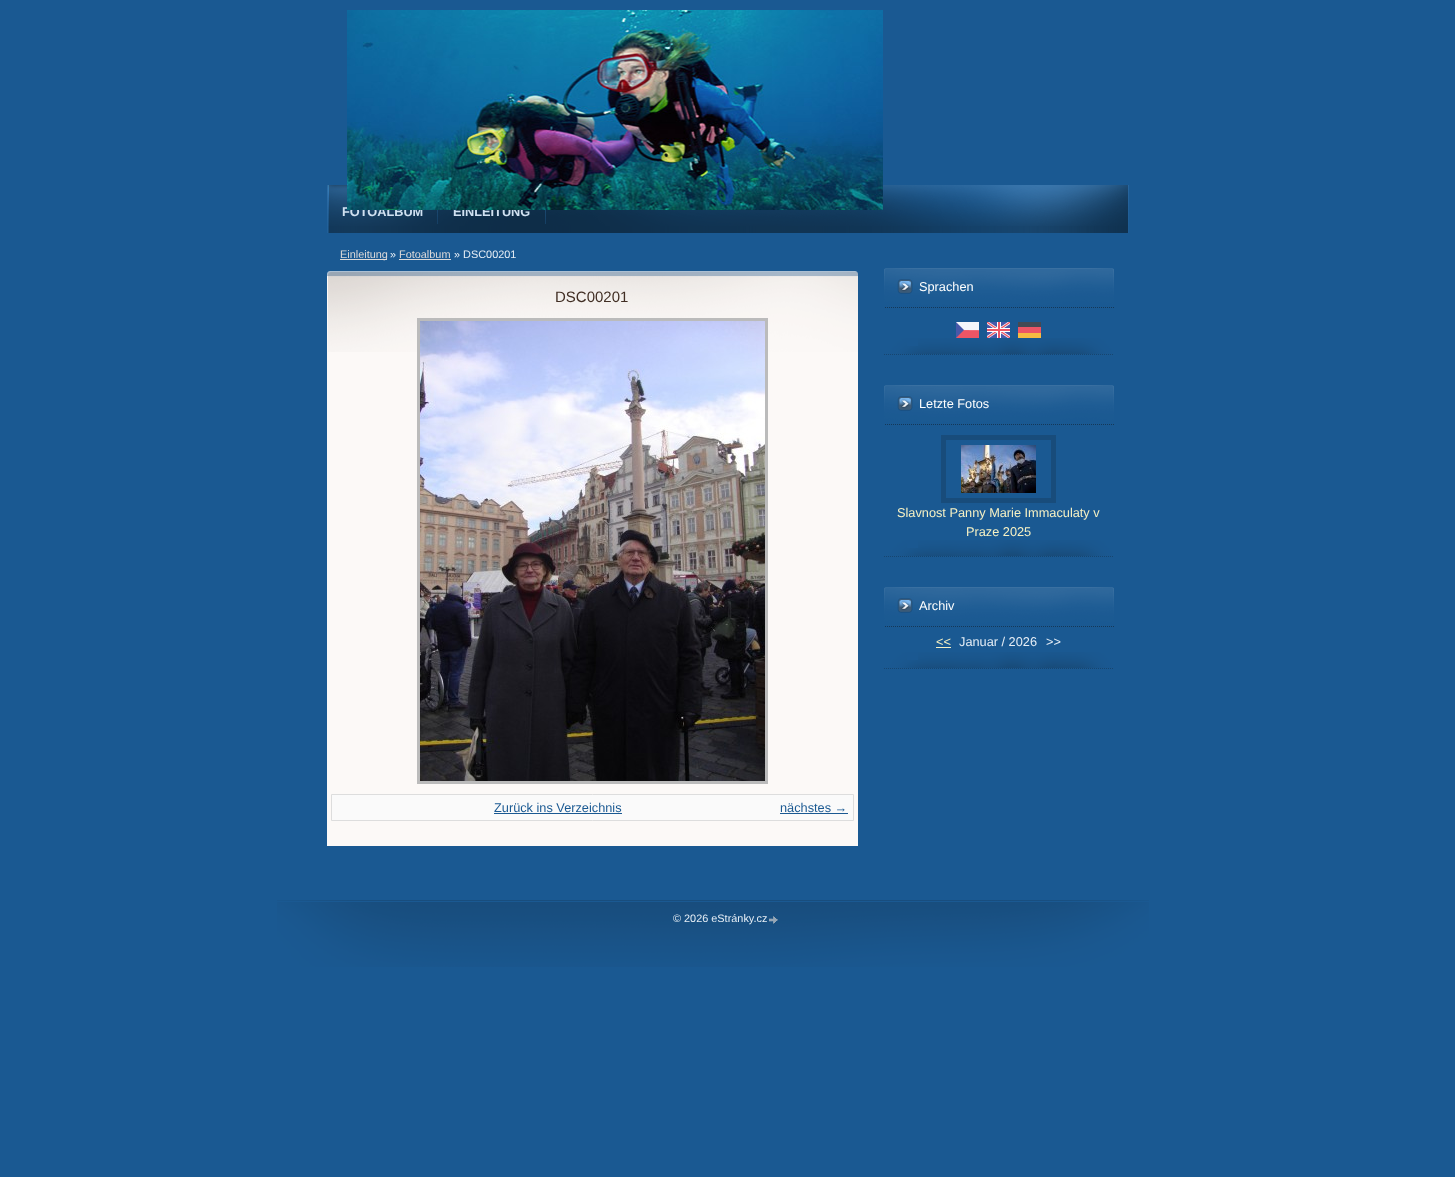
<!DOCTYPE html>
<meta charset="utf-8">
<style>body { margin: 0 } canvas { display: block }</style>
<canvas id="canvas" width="1455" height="1177"></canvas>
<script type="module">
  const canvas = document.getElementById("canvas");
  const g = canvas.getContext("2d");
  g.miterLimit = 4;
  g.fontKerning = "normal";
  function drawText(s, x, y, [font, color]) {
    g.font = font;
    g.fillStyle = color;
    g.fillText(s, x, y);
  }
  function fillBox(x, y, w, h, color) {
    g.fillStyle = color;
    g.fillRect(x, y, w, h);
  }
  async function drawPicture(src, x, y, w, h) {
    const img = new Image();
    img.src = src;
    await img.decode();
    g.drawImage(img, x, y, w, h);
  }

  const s1 = ["bold 12.75px Liberation Sans", "#D0E1F1"];
  const s2 = ["10.9px Liberation Sans", "#DDDAD9"];
  const s3 = ["10.9px Liberation Sans", "#E5EDF5"];
  const s4 = ["15px Liberation Sans", "#412E24"];
  const s5 = ["12.75px Liberation Sans", "#1A5992"];
  const s6 = ["12.75px Liberation Sans", "#FFFFFF"];
  const s7 = ["12.75px Liberation Sans", "#F6F1C4"];
  const s8 = ["12.75px Liberation Sans", "#E5EDF5"];

  fillBox(0, 0, 1455, 1177, "#1A5992");
  await drawPicture("pic3.png", 327, 185, 802, 41);
  drawText("FOTOALBUM", 342, 216, s1);
  drawText("EINLEITUNG", 453, 216, s1);
  await drawPicture("pic1.png", 347, 10, 536, 200);
  await drawPicture("pic2.png", 327, 226, 802, 7);
  await drawPicture("pic4.png", 437, 210, 1, 14);
  await drawPicture("pic4.png", 545, 210, 1, 14);
  fillBox(340, 259, 47, 1, "#DDDAD9");
  drawText("Einleitung", 340, 258, s2);
  drawText("»", 390, 258, s3);
  drawText("Fotoalbum", 399, 258, s2);
  fillBox(399, 259, 52, 1, "#DDDAD9");
  drawText("» DSC00201", 454, 258, s3);
  fillBox(327, 352, 531, 494, "#FCF9F7");
  await drawPicture("pic5.png", 327, 271, 531, 81);
  drawText("DSC00201", 555, 302, s4);
  g.strokeStyle = "#BBBBBB";
  g.lineWidth = 3;
  g.strokeRect(418.5, 319.5, 348, 463);
  await drawPicture("pic6.png", 420, 321, 345, 460);
  g.fillStyle = "#FAFAFA";
  g.beginPath();
  g.rect(331.5, 794.5, 522, 26);
  g.fill();
  g.strokeStyle = "#DDDDDD";
  g.lineWidth = 1;
  g.stroke();
  drawText("Zurück ins Verzeichnis", 494, 812, s5);
  fillBox(494, 813, 128, 1, "#1A5992");
  drawText("nächstes →", 780, 812, s5);
  fillBox(780, 813, 68, 1, "#1A5992");
  await drawPicture("pic7.png", 884, 268, 230, 40);
  drawText("Sprachen", 919, 291, s6);
  await drawPicture("pic8.png", 884, 338, 229, 17);
  await drawPicture("pic9.png", 956, 322, 23, 16);
  await drawPicture("pic10.png", 987, 322, 23, 16);
  await drawPicture("pic11.png", 1018, 322, 23, 16);
  await drawPicture("pic7.png", 884, 385, 230, 40);
  drawText("Letzte Fotos", 919, 408, s6);
  await drawPicture("pic8.png", 884, 540, 229, 17);
  g.strokeStyle = "#184C7B";
  g.lineWidth = 5;
  g.strokeRect(943.5, 437.5, 110, 63);
  await drawPicture("pic12.png", 961, 445, 75, 48);
  drawText("Slavnost Panny Marie Immaculaty v", 897, 517, s7);
  drawText("Praze 2025", 966, 536, s7);
  await drawPicture("pic7.png", 884, 587, 230, 40);
  drawText("Archiv", 919, 610, s6);
  await drawPicture("pic8.png", 884, 652, 229, 17);
  drawText("<<", 936, 646, s7);
  fillBox(936, 647, 15, 1, "#F6F1C4");
  drawText("Januar / 2026", 959, 646, s8);
  drawText(">>", 1046, 646, s8);
  await drawPicture("pic13.png", 277, 900, 872, 67);
  drawText("© 2026 eStránky.cz", 673, 922, s3);
  await drawPicture("pic14.png", 769, 916, 9, 8);
</script>
